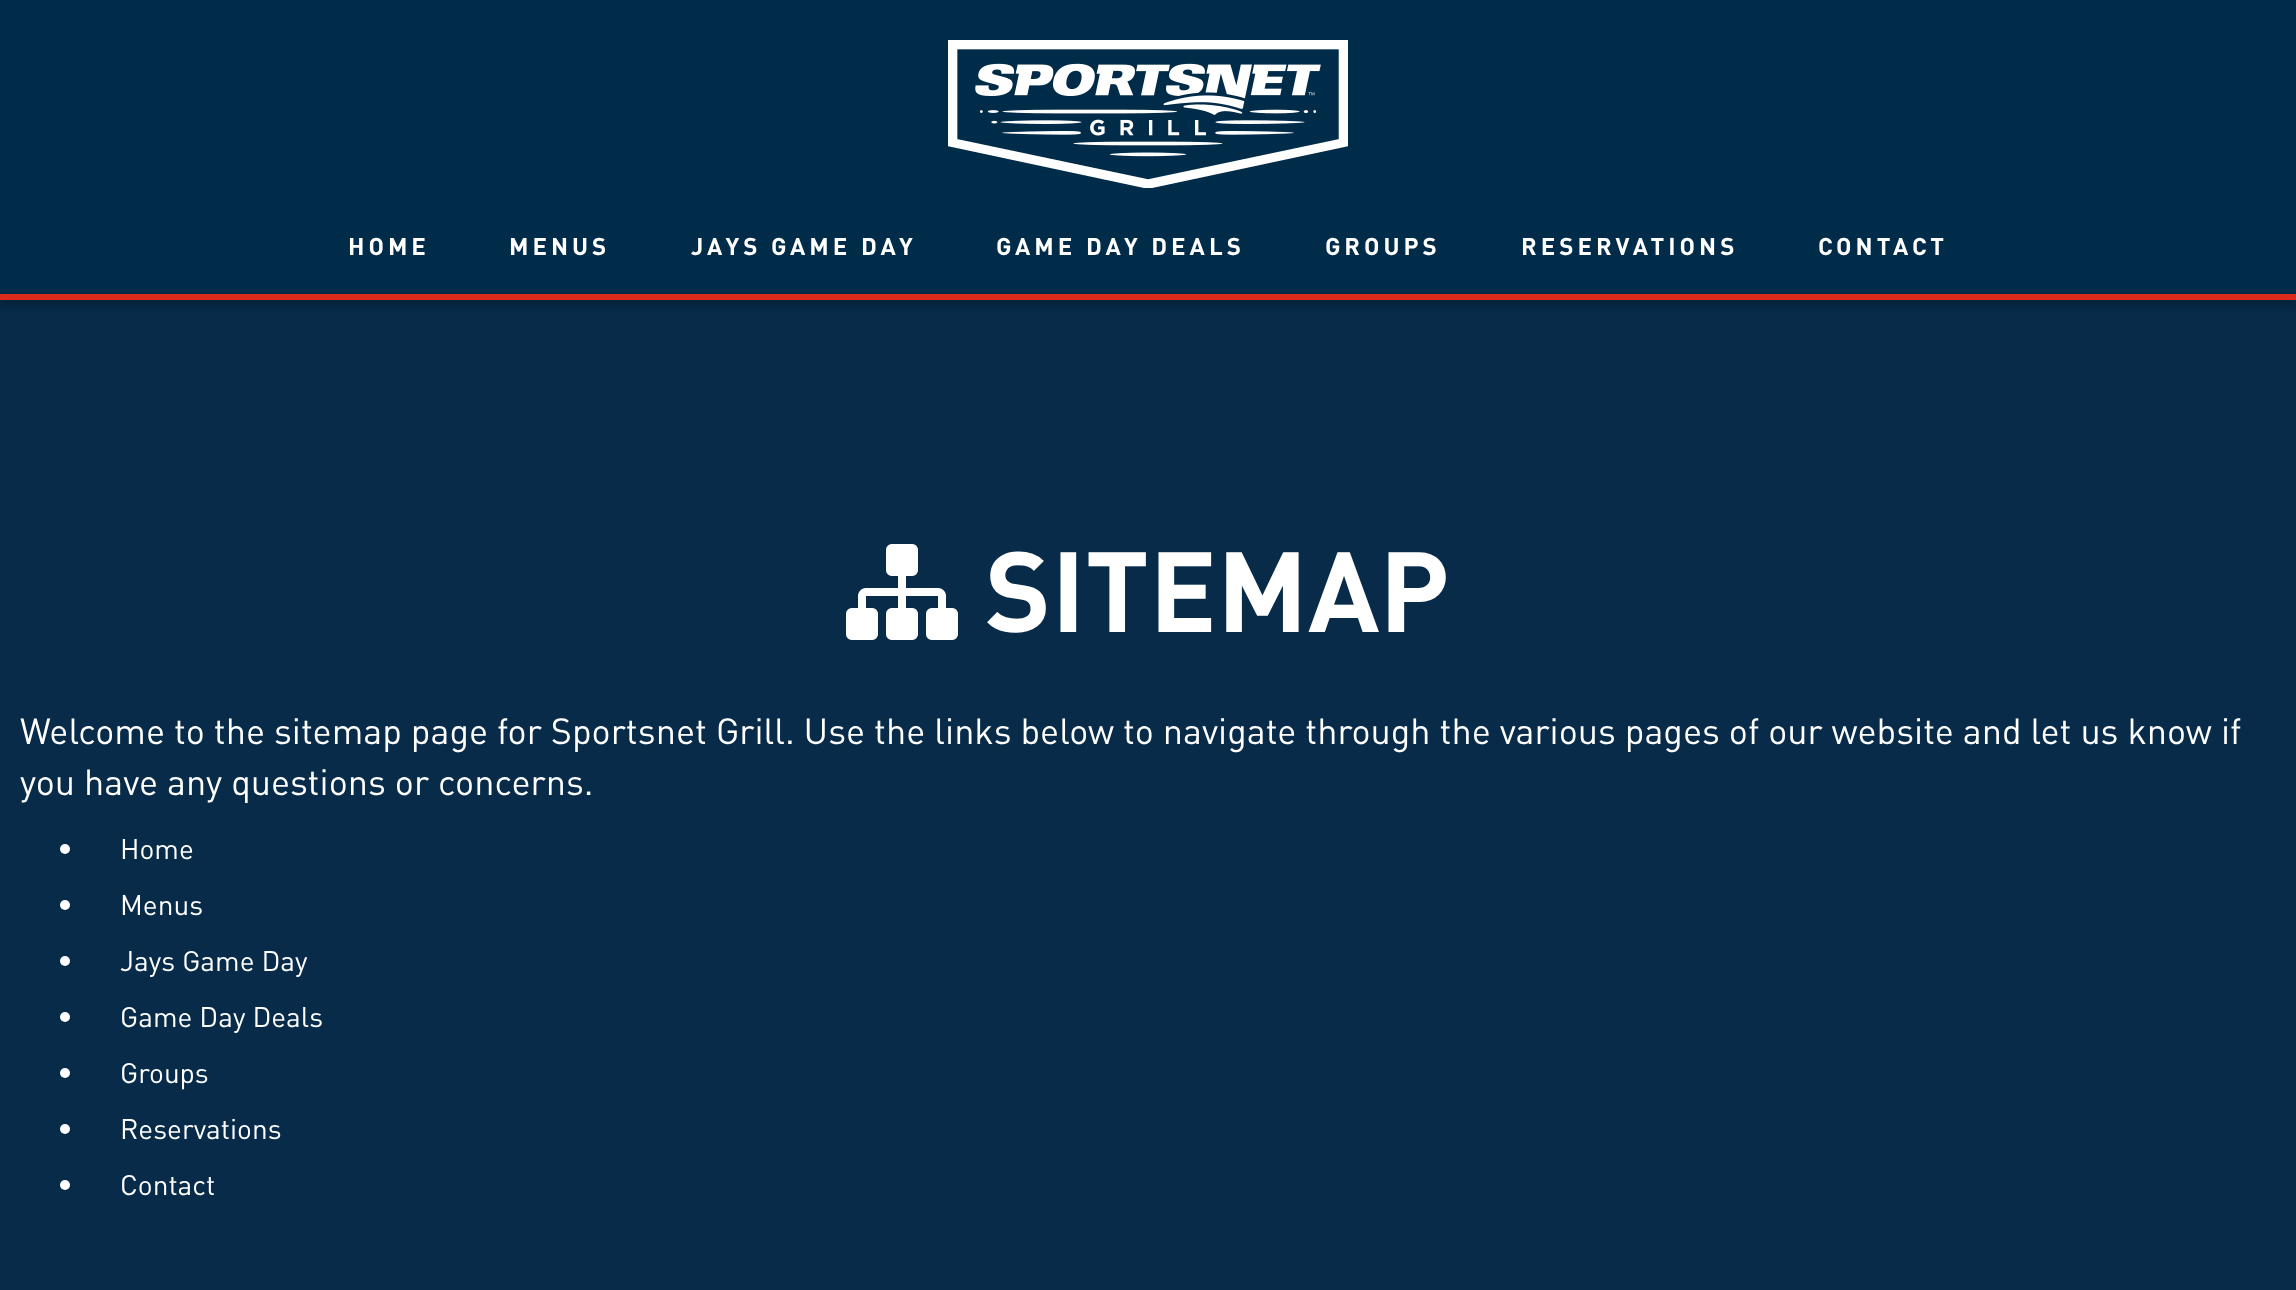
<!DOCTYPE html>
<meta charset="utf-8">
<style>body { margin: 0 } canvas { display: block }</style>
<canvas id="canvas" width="2296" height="1290"></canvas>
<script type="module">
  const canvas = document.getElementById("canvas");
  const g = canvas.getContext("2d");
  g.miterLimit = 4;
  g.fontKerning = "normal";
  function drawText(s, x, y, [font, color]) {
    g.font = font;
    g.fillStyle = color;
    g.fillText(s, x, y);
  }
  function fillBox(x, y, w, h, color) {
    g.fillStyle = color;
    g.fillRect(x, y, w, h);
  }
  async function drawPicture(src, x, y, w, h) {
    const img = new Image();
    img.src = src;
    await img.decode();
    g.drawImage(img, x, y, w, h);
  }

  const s1 = ["bold 24px DIN", "#FFFFFF"];
  const s2 = ["bold 112px DIN", "#FFFFFF"];
  const s3 = ["36px DIN", "#FFFFFF"];
  const s4 = ["28px DIN", "#FFFFFF"];

  fillBox(0, 0, 2296, 1290, "#072B49");
  g.fillStyle = "rgba(0, 0, 0, 0.2)";
  g.filter = "blur(3px)";
  g.beginPath();
  g.rect(0, 6, 2296, 300);
  g.fill();
  g.filter = "none";
  fillBox(0, 0, 2296, 294, "#002B49");
  fillBox(0, 294, 2296, 6, "#DA2A1C");
  await drawPicture("pic1.png", 948, 40, 400, 148);
  g.letterSpacing = "4px";
  drawText("HOME", 348, 255, s1);
  drawText("MENUS", 509, 255, s1);
  drawText("JAYS GAME DAY", 691, 255, s1);
  drawText("GAME DAY DEALS", 996, 255, s1);
  drawText("GROUPS", 1325, 255, s1);
  drawText("RESERVATIONS", 1521, 255, s1);
  drawText("CONTACT", 1818, 255, s1);
  await drawPicture("pic2.png", 846, 544, 112, 96);
  g.letterSpacing = "0px";
  drawText("SITEMAP", 985, 632, s2);
  drawText("Welcome to the sitemap page for Sportsnet Grill. Use the links below to navigate through the various pages of our website and let us know if", 20, 744, s3);
  drawText("you have any questions or concerns.", 20, 795, s3);
  g.beginPath();
  g.arc(65, 849, 5, 0, Math.PI * 2);
  g.fill();
  drawText("Home", 120, 859, s4);
  g.beginPath();
  g.arc(65, 905, 5, 0, Math.PI * 2);
  g.fill();
  drawText("Menus", 120, 915, s4);
  g.beginPath();
  g.arc(65, 961, 5, 0, Math.PI * 2);
  g.fill();
  drawText("Jays Game Day", 120, 971, s4);
  g.beginPath();
  g.arc(65, 1017, 5, 0, Math.PI * 2);
  g.fill();
  drawText("Game Day Deals", 120, 1027, s4);
  g.beginPath();
  g.arc(65, 1073, 5, 0, Math.PI * 2);
  g.fill();
  drawText("Groups", 120, 1083, s4);
  g.beginPath();
  g.arc(65, 1129, 5, 0, Math.PI * 2);
  g.fill();
  drawText("Reservations", 120, 1139, s4);
  g.beginPath();
  g.arc(65, 1185, 5, 0, Math.PI * 2);
  g.fill();
  drawText("Contact", 120, 1195, s4);
</script>
